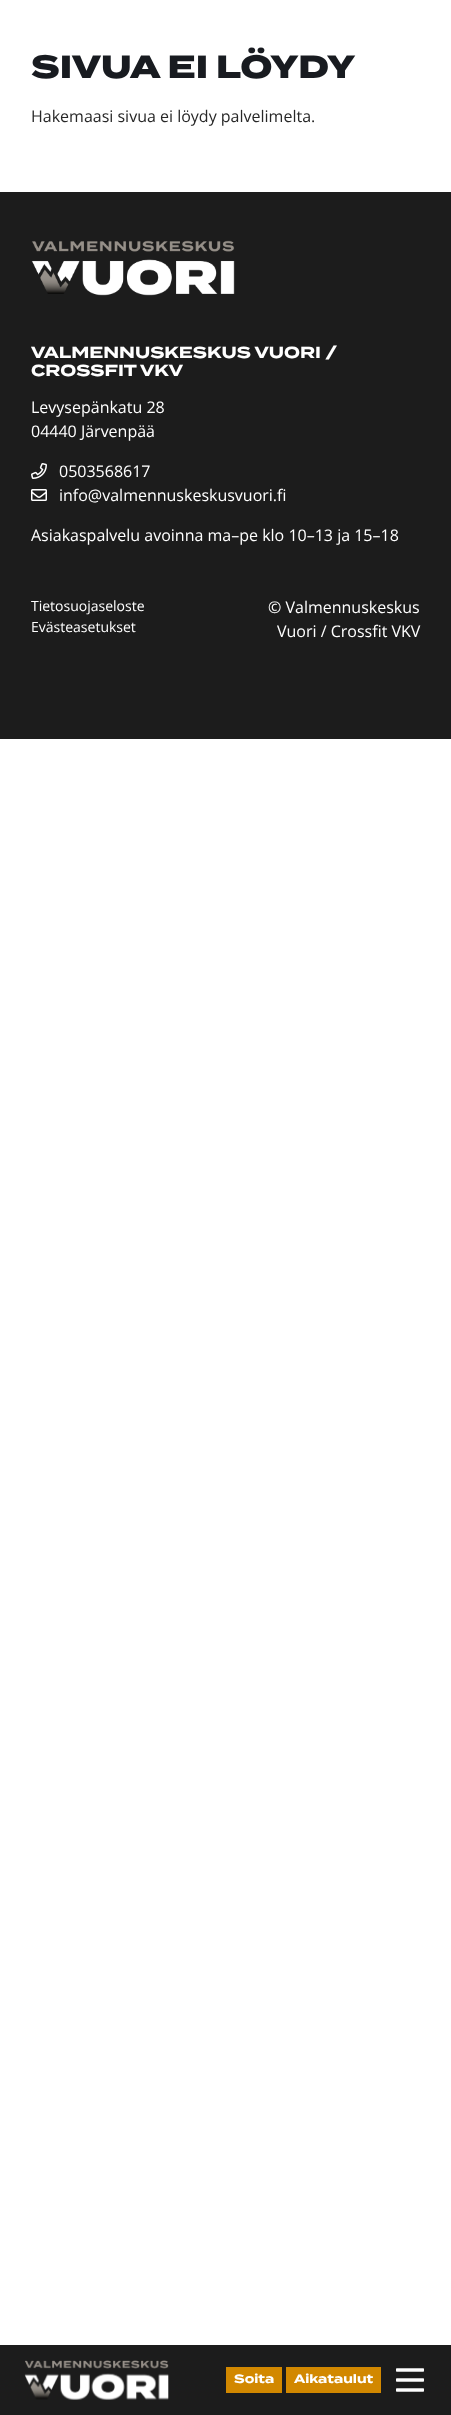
<!DOCTYPE html>
<meta charset="utf-8">
<style>body { margin: 0 } canvas { display: block }</style>
<canvas id="canvas" width="451" height="2415"></canvas>
<script type="module">
  const canvas = document.getElementById("canvas");
  const g = canvas.getContext("2d");
  g.miterLimit = 4;
  g.fontKerning = "normal";
  function drawText(s, x, y, [font, color]) {
    g.font = font;
    g.fillStyle = color;
    g.fillText(s, x, y);
  }
  function fillBox(x, y, w, h, color) {
    g.fillStyle = color;
    g.fillRect(x, y, w, h);
  }
  async function drawPicture(src, x, y, w, h) {
    const img = new Image();
    img.src = src;
    await img.decode();
    g.drawImage(img, x, y, w, h);
  }

  const s1 = ["900 32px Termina", "#181B20"];
  const s2 = ["16px Open Sans", "#272727"];
  const s3 = ["bold 16px Termina", "#FFFFFF"];
  const s4 = ["16px Open Sans", "#FFFFFF"];
  const s5 = ["14px Open Sans", "#FFFFFF"];
  const s6 = ["bold 12px Termina", "#FFFFFF"];

  fillBox(0, 0, 451, 2415, "#FFFFFF");
  drawText("SIVUA EI LÖYDY", 31, 78, s1);
  drawText("Hakemaasi sivua ei löydy palvelimelta.", 31, 122, s2);
  fillBox(0, 192, 451, 547, "#1C1C1C");
  await drawPicture("pic1.png", 31, 240, 204, 56);
  drawText("VALMENNUSKESKUS VUORI /", 31, 358, s3);
  drawText("CROSSFIT VKV", 31, 376, s3);
  drawText("Levysepänkatu 28", 31, 413, s4);
  drawText("04440 Järvenpää", 31, 437, s4);
  await drawPicture("pic2.png", 31, 463, 16, 16);
  drawText("0503568617", 59, 477, s4);
  await drawPicture("pic3.png", 31, 489, 16, 12);
  drawText("info@valmennuskeskusvuori.fi", 59, 501, s4);
  drawText("Asiakaspalvelu avoinna ma–pe klo 10–13 ja 15–18", 31, 541, s4);
  drawText("Tietosuojaseloste", 31, 611, s5);
  drawText("Evästeasetukset", 31, 632, s5);
  drawText("© Valmennuskeskus", 268, 613, s4);
  drawText("Vuori / Crossfit VKV", 277, 637, s4);
  fillBox(0, 2345, 451, 70, "#1C1C1C");
  await drawPicture("pic4.png", 24, 2360, 145, 40);
  await drawPicture("pic5.png", 396, 2368, 28, 24);
  fillBox(226, 2367, 56, 26, "#D28800");
  drawText("Soita", 234, 2383, s6);
  fillBox(286, 2367, 95, 26, "#D28800");
  drawText("Aikataulut", 294, 2383, s6);
</script>
